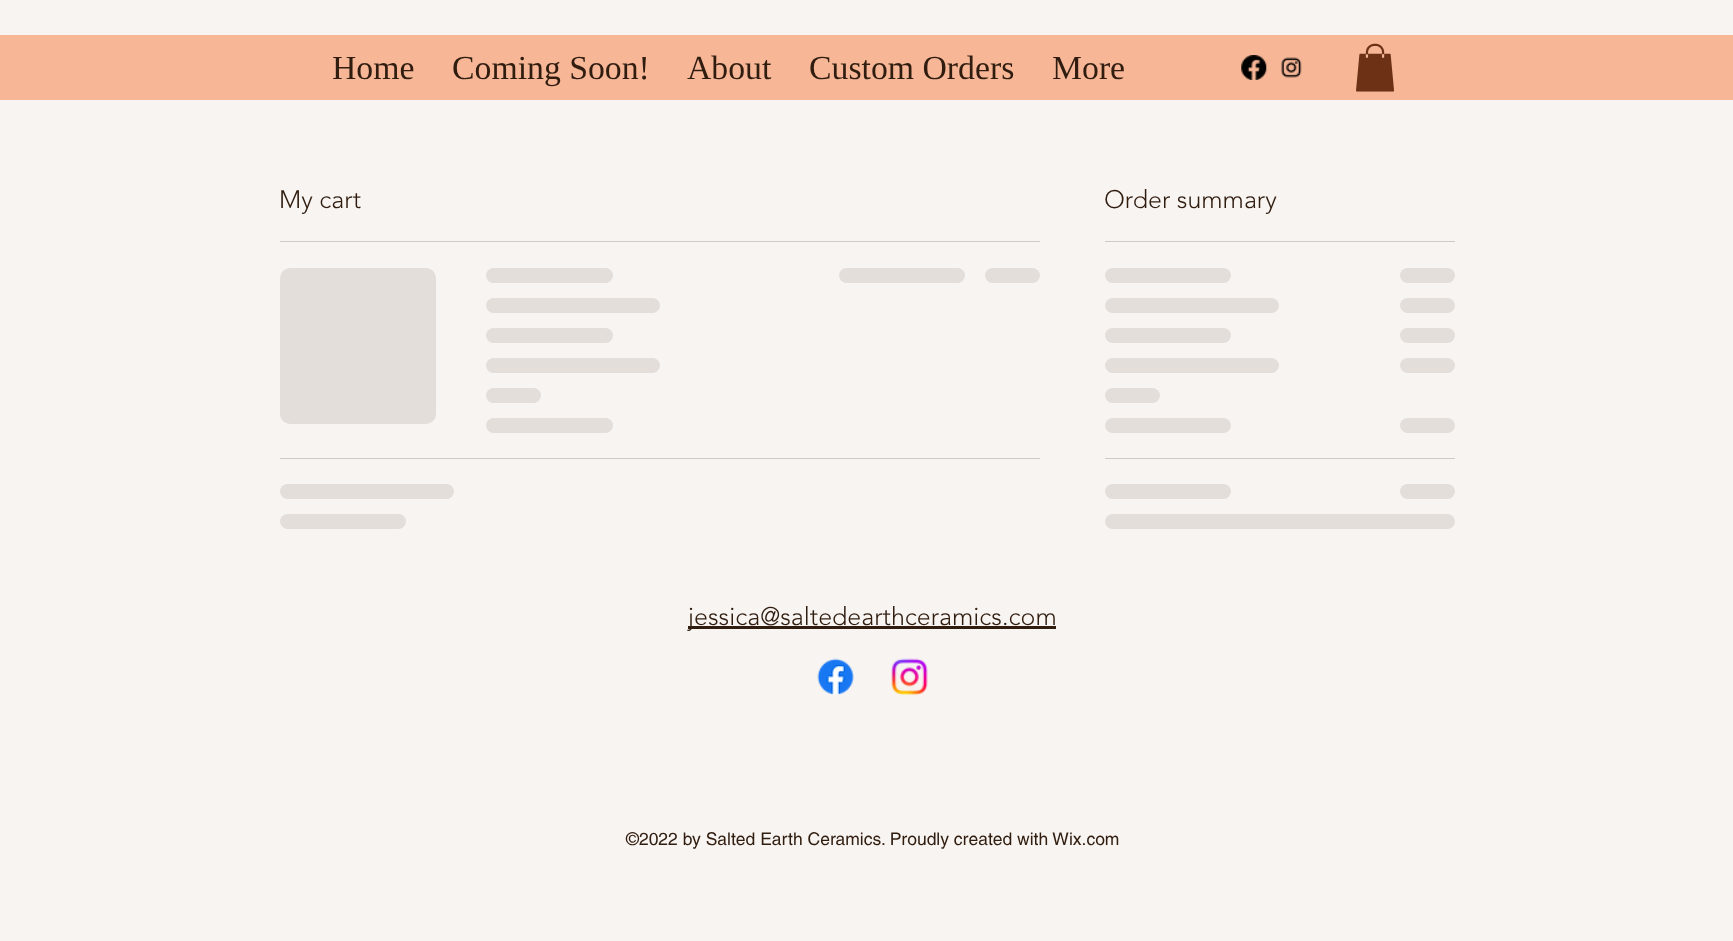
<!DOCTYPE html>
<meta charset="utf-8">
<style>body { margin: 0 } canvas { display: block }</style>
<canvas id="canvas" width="1733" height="941"></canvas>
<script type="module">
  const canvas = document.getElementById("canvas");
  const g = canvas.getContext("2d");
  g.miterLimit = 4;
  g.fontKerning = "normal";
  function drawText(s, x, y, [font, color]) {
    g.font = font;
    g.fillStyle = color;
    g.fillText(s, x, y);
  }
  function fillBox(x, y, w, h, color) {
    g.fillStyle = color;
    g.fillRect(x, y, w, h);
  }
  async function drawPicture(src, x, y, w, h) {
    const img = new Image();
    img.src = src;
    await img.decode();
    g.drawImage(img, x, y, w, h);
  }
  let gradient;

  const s1 = ["33.75px Liberation Serif", "#301D10"];
  const s2 = ["300 25px 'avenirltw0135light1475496'", "#301D10"];
  const s3 = ["17.5px helvetica", "#301D10"];

  fillBox(0, 0, 1733, 941, "#F8F4F1");
  fillBox(0, 35, 1733, 65, "#F7B797");
  drawText("Home", 332, 79, s1);
  drawText("Coming Soon!", 452, 79, s1);
  drawText("About", 687, 79, s1);
  drawText("Custom Orders", 809, 79, s1);
  drawText("More", 1052, 79, s1);
  await drawPicture("pic1.png", 1241, 55, 26, 25);
  await drawPicture("pic2.png", 1281, 57, 21, 21);
  await drawPicture("pic3.png", 1356, 43, 39, 49);
  fillBox(280, 241, 760, 1, "#D0C9C4");
  drawText("My cart", 279, 208, s2);
  gradient = g.createLinearGradient(280, 346, 905, 346);
  gradient.addColorStop(0.25, "#E4DEDB");
  gradient.addColorStop(0.37, "#D0C9C4");
  gradient.addColorStop(0.63, "#E4DEDB");
  g.fillStyle = gradient;
  g.beginPath();
  g.roundRect(280, 268, 156, 156, 10);
  g.fill();
  gradient = g.createLinearGradient(486, 275, 991, 275);
  gradient.addColorStop(0.25, "#E4DEDB");
  gradient.addColorStop(0.37, "#D0C9C4");
  gradient.addColorStop(0.63, "#E4DEDB");
  g.fillStyle = gradient;
  g.beginPath();
  g.roundRect(486, 268, 127, 15, 7.5);
  g.fill();
  gradient = g.createLinearGradient(486, 305, 1181, 305);
  gradient.addColorStop(0.25, "#E4DEDB");
  gradient.addColorStop(0.37, "#D0C9C4");
  gradient.addColorStop(0.63, "#E4DEDB");
  g.fillStyle = gradient;
  g.beginPath();
  g.roundRect(486, 298, 174, 15, 7.5);
  g.fill();
  gradient = g.createLinearGradient(486, 335, 991, 335);
  gradient.addColorStop(0.25, "#E4DEDB");
  gradient.addColorStop(0.37, "#D0C9C4");
  gradient.addColorStop(0.63, "#E4DEDB");
  g.fillStyle = gradient;
  g.beginPath();
  g.roundRect(486, 328, 127, 15, 7.5);
  g.fill();
  gradient = g.createLinearGradient(486, 365, 1181, 365);
  gradient.addColorStop(0.25, "#E4DEDB");
  gradient.addColorStop(0.37, "#D0C9C4");
  gradient.addColorStop(0.63, "#E4DEDB");
  g.fillStyle = gradient;
  g.beginPath();
  g.roundRect(486, 358, 174, 15, 7.5);
  g.fill();
  gradient = g.createLinearGradient(486, 395, 706, 395);
  gradient.addColorStop(0.25, "#E4DEDB");
  gradient.addColorStop(0.37, "#D0C9C4");
  gradient.addColorStop(0.63, "#E4DEDB");
  g.fillStyle = gradient;
  g.beginPath();
  g.roundRect(486, 388, 55, 15, 7.5);
  g.fill();
  gradient = g.createLinearGradient(486, 425, 991, 425);
  gradient.addColorStop(0.25, "#E4DEDB");
  gradient.addColorStop(0.37, "#D0C9C4");
  gradient.addColorStop(0.63, "#E4DEDB");
  g.fillStyle = gradient;
  g.beginPath();
  g.roundRect(486, 418, 127, 15, 7.5);
  g.fill();
  gradient = g.createLinearGradient(839, 275, 1344, 275);
  gradient.addColorStop(0.25, "#E4DEDB");
  gradient.addColorStop(0.37, "#D0C9C4");
  gradient.addColorStop(0.63, "#E4DEDB");
  g.fillStyle = gradient;
  g.beginPath();
  g.roundRect(839, 268, 126, 15, 7.5);
  g.fill();
  gradient = g.createLinearGradient(985, 275, 1205, 275);
  gradient.addColorStop(0.25, "#E4DEDB");
  gradient.addColorStop(0.37, "#D0C9C4");
  gradient.addColorStop(0.63, "#E4DEDB");
  g.fillStyle = gradient;
  g.beginPath();
  g.roundRect(985, 268, 55, 15, 7.5);
  g.fill();
  fillBox(280, 458, 760, 1, "#D0C9C4");
  gradient = g.createLinearGradient(280, 491, 975, 491);
  gradient.addColorStop(0.25, "#E4DEDB");
  gradient.addColorStop(0.37, "#D0C9C4");
  gradient.addColorStop(0.63, "#E4DEDB");
  g.fillStyle = gradient;
  g.beginPath();
  g.roundRect(280, 484, 174, 15, 7.5);
  g.fill();
  gradient = g.createLinearGradient(280, 521, 785, 521);
  gradient.addColorStop(0.25, "#E4DEDB");
  gradient.addColorStop(0.37, "#D0C9C4");
  gradient.addColorStop(0.63, "#E4DEDB");
  g.fillStyle = gradient;
  g.beginPath();
  g.roundRect(280, 514, 126, 15, 7.5);
  g.fill();
  fillBox(1105, 241, 350, 1, "#D0C9C4");
  drawText("Order summary", 1104, 208, s2);
  gradient = g.createLinearGradient(1105, 275, 1610, 275);
  gradient.addColorStop(0.25, "#E4DEDB");
  gradient.addColorStop(0.37, "#D0C9C4");
  gradient.addColorStop(0.63, "#E4DEDB");
  g.fillStyle = gradient;
  g.beginPath();
  g.roundRect(1105, 268, 126, 15, 7.5);
  g.fill();
  gradient = g.createLinearGradient(1400, 275, 1620, 275);
  gradient.addColorStop(0.25, "#E4DEDB");
  gradient.addColorStop(0.37, "#D0C9C4");
  gradient.addColorStop(0.63, "#E4DEDB");
  g.fillStyle = gradient;
  g.beginPath();
  g.roundRect(1400, 268, 55, 15, 7.5);
  g.fill();
  gradient = g.createLinearGradient(1105, 305, 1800, 305);
  gradient.addColorStop(0.25, "#E4DEDB");
  gradient.addColorStop(0.37, "#D0C9C4");
  gradient.addColorStop(0.63, "#E4DEDB");
  g.fillStyle = gradient;
  g.beginPath();
  g.roundRect(1105, 298, 174, 15, 7.5);
  g.fill();
  gradient = g.createLinearGradient(1400, 305, 1620, 305);
  gradient.addColorStop(0.25, "#E4DEDB");
  gradient.addColorStop(0.37, "#D0C9C4");
  gradient.addColorStop(0.63, "#E4DEDB");
  g.fillStyle = gradient;
  g.beginPath();
  g.roundRect(1400, 298, 55, 15, 7.5);
  g.fill();
  gradient = g.createLinearGradient(1105, 335, 1610, 335);
  gradient.addColorStop(0.25, "#E4DEDB");
  gradient.addColorStop(0.37, "#D0C9C4");
  gradient.addColorStop(0.63, "#E4DEDB");
  g.fillStyle = gradient;
  g.beginPath();
  g.roundRect(1105, 328, 126, 15, 7.5);
  g.fill();
  gradient = g.createLinearGradient(1400, 335, 1620, 335);
  gradient.addColorStop(0.25, "#E4DEDB");
  gradient.addColorStop(0.37, "#D0C9C4");
  gradient.addColorStop(0.63, "#E4DEDB");
  g.fillStyle = gradient;
  g.beginPath();
  g.roundRect(1400, 328, 55, 15, 7.5);
  g.fill();
  gradient = g.createLinearGradient(1105, 365, 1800, 365);
  gradient.addColorStop(0.25, "#E4DEDB");
  gradient.addColorStop(0.37, "#D0C9C4");
  gradient.addColorStop(0.63, "#E4DEDB");
  g.fillStyle = gradient;
  g.beginPath();
  g.roundRect(1105, 358, 174, 15, 7.5);
  g.fill();
  gradient = g.createLinearGradient(1400, 365, 1620, 365);
  gradient.addColorStop(0.25, "#E4DEDB");
  gradient.addColorStop(0.37, "#D0C9C4");
  gradient.addColorStop(0.63, "#E4DEDB");
  g.fillStyle = gradient;
  g.beginPath();
  g.roundRect(1400, 358, 55, 15, 7.5);
  g.fill();
  gradient = g.createLinearGradient(1105, 395, 1325, 395);
  gradient.addColorStop(0.25, "#E4DEDB");
  gradient.addColorStop(0.37, "#D0C9C4");
  gradient.addColorStop(0.63, "#E4DEDB");
  g.fillStyle = gradient;
  g.beginPath();
  g.roundRect(1105, 388, 55, 15, 7.5);
  g.fill();
  gradient = g.createLinearGradient(1105, 425, 1610, 425);
  gradient.addColorStop(0.25, "#E4DEDB");
  gradient.addColorStop(0.37, "#D0C9C4");
  gradient.addColorStop(0.63, "#E4DEDB");
  g.fillStyle = gradient;
  g.beginPath();
  g.roundRect(1105, 418, 126, 15, 7.5);
  g.fill();
  gradient = g.createLinearGradient(1400, 425, 1620, 425);
  gradient.addColorStop(0.25, "#E4DEDB");
  gradient.addColorStop(0.37, "#D0C9C4");
  gradient.addColorStop(0.63, "#E4DEDB");
  g.fillStyle = gradient;
  g.beginPath();
  g.roundRect(1400, 418, 55, 15, 7.5);
  g.fill();
  fillBox(1105, 458, 350, 1, "#D0C9C4");
  gradient = g.createLinearGradient(1105, 491, 1610, 491);
  gradient.addColorStop(0.25, "#E4DEDB");
  gradient.addColorStop(0.37, "#D0C9C4");
  gradient.addColorStop(0.63, "#E4DEDB");
  g.fillStyle = gradient;
  g.beginPath();
  g.roundRect(1105, 484, 126, 15, 7.5);
  g.fill();
  gradient = g.createLinearGradient(1400, 491, 1620, 491);
  gradient.addColorStop(0.25, "#E4DEDB");
  gradient.addColorStop(0.37, "#D0C9C4");
  gradient.addColorStop(0.63, "#E4DEDB");
  g.fillStyle = gradient;
  g.beginPath();
  g.roundRect(1400, 484, 55, 15, 7.5);
  g.fill();
  gradient = g.createLinearGradient(1105, 521, 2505, 521);
  gradient.addColorStop(0.25, "#E4DEDB");
  gradient.addColorStop(0.37, "#D0C9C4");
  gradient.addColorStop(0.63, "#E4DEDB");
  g.fillStyle = gradient;
  g.beginPath();
  g.roundRect(1105, 514, 350, 15, 7.5);
  g.fill();
  fillBox(688, 626, 368, 3, "#301D10");
  drawText("jessica@saltedearthceramics.com", 688, 625, s2);
  await drawPicture("pic4.png", 817, 658, 37, 37);
  await drawPicture("pic5.png", 891, 658, 37, 38);
  drawText("©2022 by Salted Earth Ceramics. Proudly created with Wix.com", 626, 845, s3);
</script>
